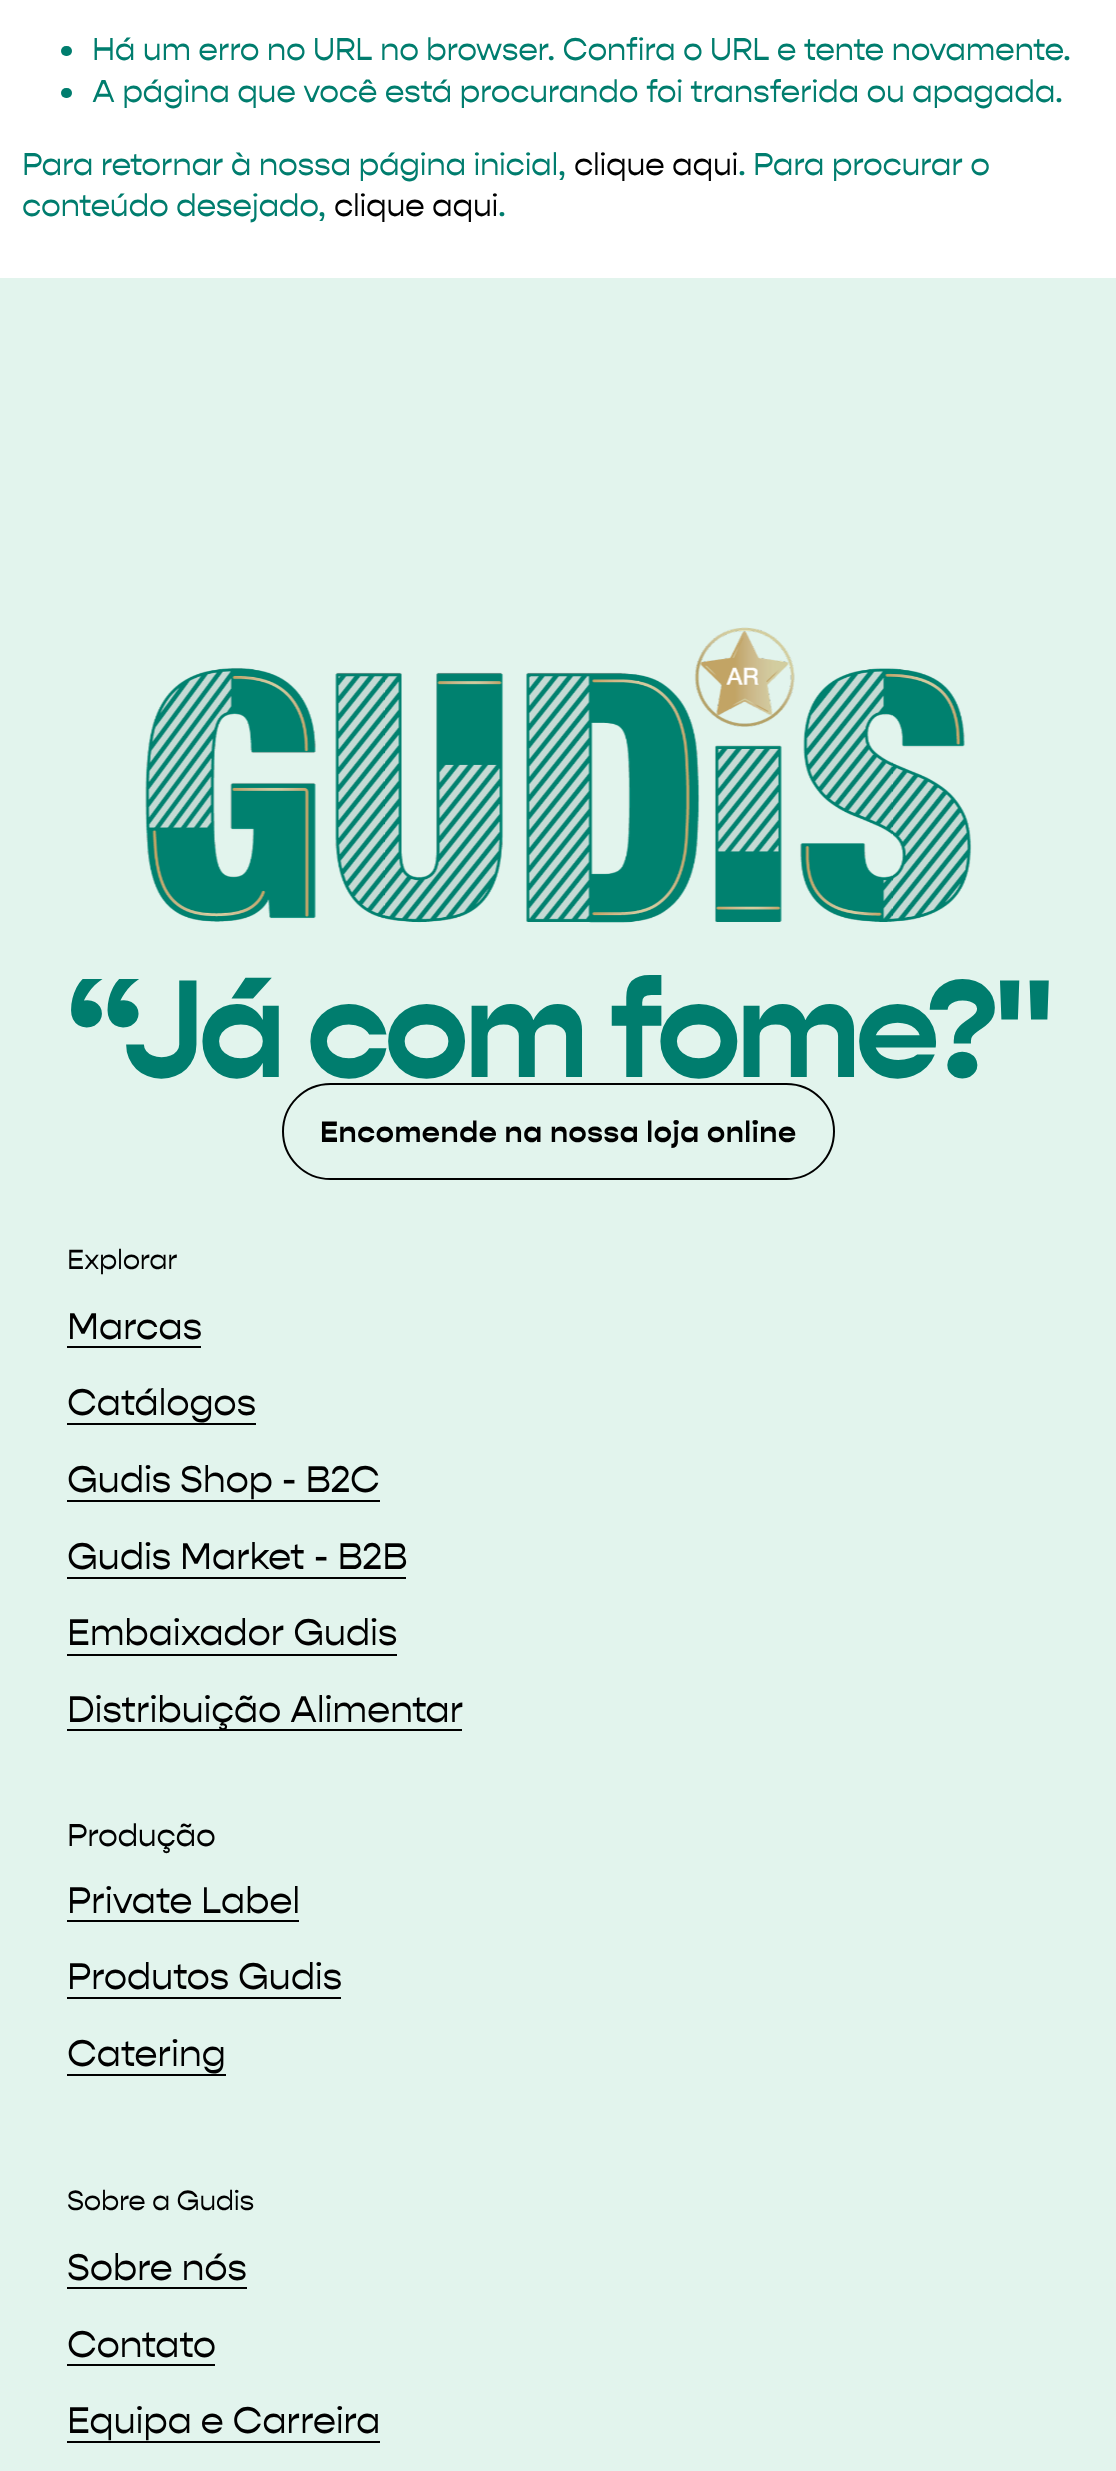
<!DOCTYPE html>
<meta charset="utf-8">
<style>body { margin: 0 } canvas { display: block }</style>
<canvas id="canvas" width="1116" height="2471"></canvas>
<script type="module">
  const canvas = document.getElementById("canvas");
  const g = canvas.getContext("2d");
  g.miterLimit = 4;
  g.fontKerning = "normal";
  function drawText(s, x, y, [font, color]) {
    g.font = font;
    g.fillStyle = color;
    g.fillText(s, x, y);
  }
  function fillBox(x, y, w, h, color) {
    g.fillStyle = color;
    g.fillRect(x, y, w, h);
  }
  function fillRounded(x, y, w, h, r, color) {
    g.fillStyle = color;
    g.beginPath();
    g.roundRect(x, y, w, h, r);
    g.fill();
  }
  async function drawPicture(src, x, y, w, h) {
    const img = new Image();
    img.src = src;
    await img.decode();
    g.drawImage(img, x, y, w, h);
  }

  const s1 = ["31.75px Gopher", "#007D6E"];
  const s2 = ["31.75px Gopher", "#000000"];
  const s3 = ["bold 139.75px Gopher", "#007D6E"];
  const s4 = ["bold 29.9px Gopher", "#000000"];
  const s5 = ["28px Gopher", "#000000"];
  const s6 = ["37.5px Gopher", "#000000"];

  fillBox(0, 0, 1116, 2471, "#FFFFFF");
  fillRounded(61, 46, 11, 10, 5, "#007D6E");
  g.letterSpacing = "-0.32px";
  drawText("Há um erro no URL no browser. Confira o URL e tente novamente.", 92, 60, s1);
  fillRounded(61, 88, 11, 10, 5, "#007D6E");
  drawText("A página que você está procurando foi transferida ou apagada.", 92, 102, s1);
  drawText("Para retornar à nossa página inicial,", 22, 175, s1);
  drawText("clique aqui", 574, 175, s2);
  drawText(". Para procurar o", 738, 175, s1);
  drawText("conteúdo desejado,", 22, 216, s1);
  drawText("clique aqui", 334, 216, s2);
  drawText(".", 498, 216, s1);
  fillBox(0, 278, 1116, 2193, "#E2F4ED");
  await drawPicture("pic1.png", 145, 627, 827, 296);
  g.letterSpacing = "-5.6px";
  drawText("“Já com fome?\"", 67, 1077, s3);
  g.beginPath();
  g.roundRect(283, 1084, 551, 95, 47.5);
  g.strokeStyle = "#000000";
  g.lineWidth = 2;
  g.stroke();
  g.letterSpacing = "0.6px";
  drawText("Encomende na nossa loja online", 320, 1142, s4);
  g.letterSpacing = "-0.32px";
  drawText("Explorar", 67, 1269, s5);
  drawText("Marcas", 67, 1339, s6);
  fillBox(67, 1346, 134, 2, "#000000");
  drawText("Catálogos", 67, 1415, s6);
  fillBox(67, 1423, 189, 2, "#000000");
  drawText("Gudis Shop - B2C", 67, 1492, s6);
  fillBox(67, 1500, 313, 2, "#000000");
  drawText("Gudis Market - B2B", 67, 1569, s6);
  fillBox(67, 1577, 339, 2, "#000000");
  drawText("Embaixador Gudis", 67, 1645, s6);
  fillBox(67, 1654, 330, 2, "#000000");
  fillBox(67, 1729, 395, 2, "#000000");
  drawText("Distribuição Alimentar", 67, 1722, s6);
  drawText("Produção", 67, 1846, s2);
  drawText("Private Label", 67, 1913, s6);
  fillBox(67, 1920, 232, 2, "#000000");
  drawText("Produtos Gudis", 67, 1989, s6);
  fillBox(67, 1997, 274, 2, "#000000");
  drawText("Catering", 67, 2066, s6);
  fillBox(67, 2074, 159, 2, "#000000");
  drawText("Sobre a Gudis", 67, 2210, s5);
  drawText("Sobre nós", 67, 2280, s6);
  fillBox(67, 2287, 180, 2, "#000000");
  drawText("Contato", 67, 2357, s6);
  fillBox(67, 2364, 148, 2, "#000000");
  drawText("Equipa e Carreira", 67, 2433, s6);
  fillBox(67, 2441, 313, 2, "#000000");
</script>
